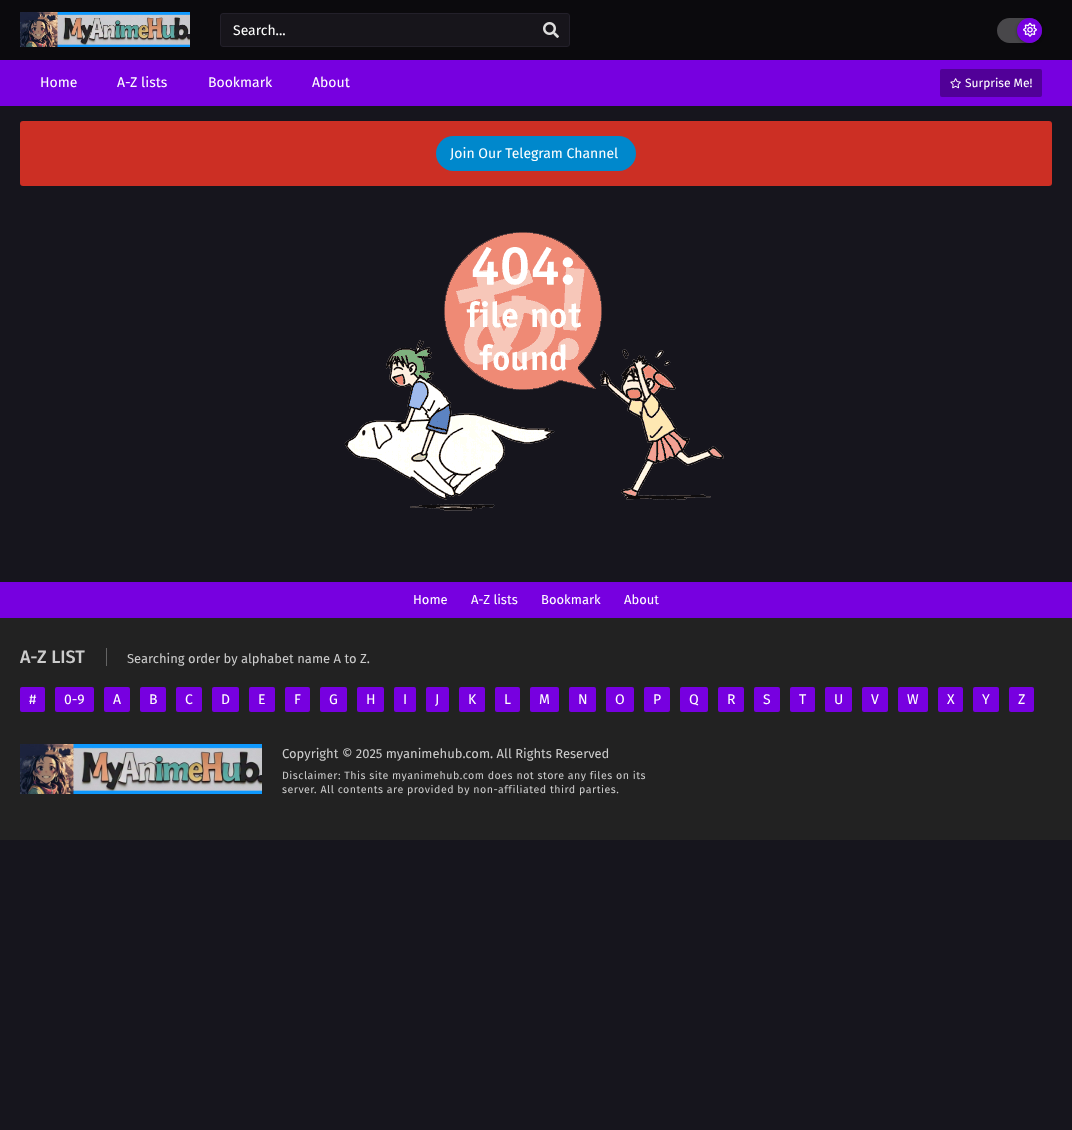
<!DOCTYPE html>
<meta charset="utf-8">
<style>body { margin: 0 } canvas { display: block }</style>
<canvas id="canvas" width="1072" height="1130"></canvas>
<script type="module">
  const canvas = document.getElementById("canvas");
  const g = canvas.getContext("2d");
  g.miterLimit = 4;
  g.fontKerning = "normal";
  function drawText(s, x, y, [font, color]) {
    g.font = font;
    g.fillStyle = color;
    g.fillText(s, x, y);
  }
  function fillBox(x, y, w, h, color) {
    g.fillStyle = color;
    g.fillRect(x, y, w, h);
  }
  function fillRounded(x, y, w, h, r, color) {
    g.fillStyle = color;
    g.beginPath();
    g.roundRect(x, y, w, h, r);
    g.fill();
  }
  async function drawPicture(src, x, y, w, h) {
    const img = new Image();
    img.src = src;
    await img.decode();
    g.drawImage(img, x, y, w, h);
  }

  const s1 = ["14px Fira Sans", "#FFFFFF"];
  const s2 = ["12px Fira Sans", "#FFFFFF"];
  const s3 = ["13px Fira Sans", "#FFFFFF"];
  const s4 = ["500 18px Fira Sans", "#CCCCCC"];
  const s5 = ["13px Fira Sans", "#CCCCCC"];
  const s6 = ["10.65px Fira Sans", "#CCCCCC"];

  fillBox(0, 0, 1072, 1130, "#16151D");
  fillBox(0, 0, 1072, 60, "#0B0A0D");
  await drawPicture("pic1.png", 20, 12, 170, 35);
  g.fillStyle = "#17151B";
  g.beginPath();
  g.roundRect(220.5, 13.5, 349, 33, 2.5);
  g.fill();
  g.strokeStyle = "#23202A";
  g.stroke();
  drawText("Search...", 233, 35, s1);
  await drawPicture("pic2.png", 543, 22, 16, 16);
  fillRounded(997, 18, 45, 25, 12.5, "#48474A");
  g.fillStyle = "rgba(0, 0, 0, 0.3)";
  g.filter = "blur(1.5px)";
  g.beginPath();
  g.roundRect(1017, 19, 25, 25, 12.5);
  g.fill();
  g.filter = "none";
  g.fillStyle = "#7700E0";
  g.beginPath();
  g.arc(1029.5, 30.5, 12.5, 0, Math.PI * 2);
  g.fill();
  await drawPicture("pic3.png", 1023, 22, 14, 15);
  fillBox(0, 60, 1072, 46, "#7700E0");
  drawText("Home", 40, 87, s1);
  drawText("A-Z lists", 117, 87, s1);
  drawText("Bookmark", 208, 87, s1);
  drawText("About", 312, 87, s1);
  fillRounded(940, 69, 102, 28, 2, "#510098");
  await drawPicture("pic4.png", 950, 78, 11, 11);
  drawText("Surprise Me!", 965, 87, s2);
  fillRounded(20, 121, 1032, 65, 3, "#CC2F24");
  fillRounded(436, 136, 200, 35, 17.5, "#0088CC");
  drawText("Join Our Telegram Channel", 450, 158, s1);
  await drawPicture("pic5.png", 344, 232, 380, 279);
  fillBox(0, 618, 1072, 222, "#222222");
  fillBox(0, 582, 1072, 36, "#7700E0");
  drawText("Home", 413, 604, s3);
  drawText("A-Z lists", 471, 604, s3);
  drawText("Bookmark", 541, 604, s3);
  drawText("About", 624, 604, s3);
  fillBox(106, 648, 1, 18, "#646464");
  drawText("A-Z LIST", 20, 663, s4);
  drawText("Searching order by alphabet name A to Z.", 127, 663, s5);
  fillRounded(20, 687, 25, 25, 2, "#7700E0");
  drawText("#", 29, 704, s1);
  fillRounded(55, 687, 39, 25, 2, "#7700E0");
  drawText("0-9", 64, 704, s1);
  fillRounded(104, 687, 26, 25, 2, "#7700E0");
  drawText("A", 113, 704, s1);
  fillRounded(140, 687, 26, 25, 2, "#7700E0");
  drawText("B", 149, 704, s1);
  fillRounded(176, 687, 26, 25, 2, "#7700E0");
  drawText("C", 185, 704, s1);
  fillRounded(212, 687, 27, 25, 2, "#7700E0");
  drawText("D", 221, 704, s1);
  fillRounded(249, 687, 26, 25, 2, "#7700E0");
  drawText("E", 258, 704, s1);
  fillRounded(285, 687, 25, 25, 2, "#7700E0");
  drawText("F", 294, 704, s1);
  fillRounded(320, 687, 27, 25, 2, "#7700E0");
  drawText("G", 329, 704, s1);
  fillRounded(357, 687, 27, 25, 2, "#7700E0");
  drawText("H", 366, 704, s1);
  fillRounded(394, 687, 22, 25, 2, "#7700E0");
  drawText("I", 403, 704, s1);
  fillRounded(426, 687, 23, 25, 2, "#7700E0");
  drawText("J", 435, 704, s1);
  fillRounded(459, 687, 26, 25, 2, "#7700E0");
  drawText("K", 468, 704, s1);
  fillRounded(495, 687, 25, 25, 2, "#7700E0");
  drawText("L", 504, 704, s1);
  fillRounded(530, 687, 29, 25, 2, "#7700E0");
  drawText("M", 539, 704, s1);
  fillRounded(569, 687, 27, 25, 2, "#7700E0");
  drawText("N", 578, 704, s1);
  fillRounded(606, 687, 28, 25, 2, "#7700E0");
  drawText("O", 615, 704, s1);
  fillRounded(644, 687, 26, 25, 2, "#7700E0");
  drawText("P", 653, 704, s1);
  fillRounded(680, 687, 28, 25, 2, "#7700E0");
  drawText("Q", 689, 704, s1);
  fillRounded(718, 687, 26, 25, 2, "#7700E0");
  drawText("R", 727, 704, s1);
  fillRounded(754, 687, 26, 25, 2, "#7700E0");
  drawText("S", 763, 704, s1);
  fillRounded(790, 687, 25, 25, 2, "#7700E0");
  drawText("T", 799, 704, s1);
  fillRounded(825, 687, 27, 25, 2, "#7700E0");
  drawText("U", 834, 704, s1);
  fillRounded(862, 687, 26, 25, 2, "#7700E0");
  drawText("V", 871, 704, s1);
  fillRounded(898, 687, 30, 25, 2, "#7700E0");
  drawText("W", 907, 704, s1);
  fillRounded(938, 687, 25, 25, 2, "#7700E0");
  drawText("X", 947, 704, s1);
  fillRounded(973, 687, 26, 25, 2, "#7700E0");
  drawText("Y", 982, 704, s1);
  fillRounded(1009, 687, 25, 25, 2, "#7700E0");
  drawText("Z", 1018, 704, s1);
  await drawPicture("pic6.png", 20, 744, 242, 50);
  drawText("Copyright © 2025 myanimehub.com. All Rights Reserved", 282, 758, s5);
  g.letterSpacing = "0.5px";
  drawText("Disclaimer: This site myanimehub.com does not store any files on its", 282, 779, s6);
  drawText("server. All contents are provided by non-affiliated third parties.", 282, 793, s6);
</script>
